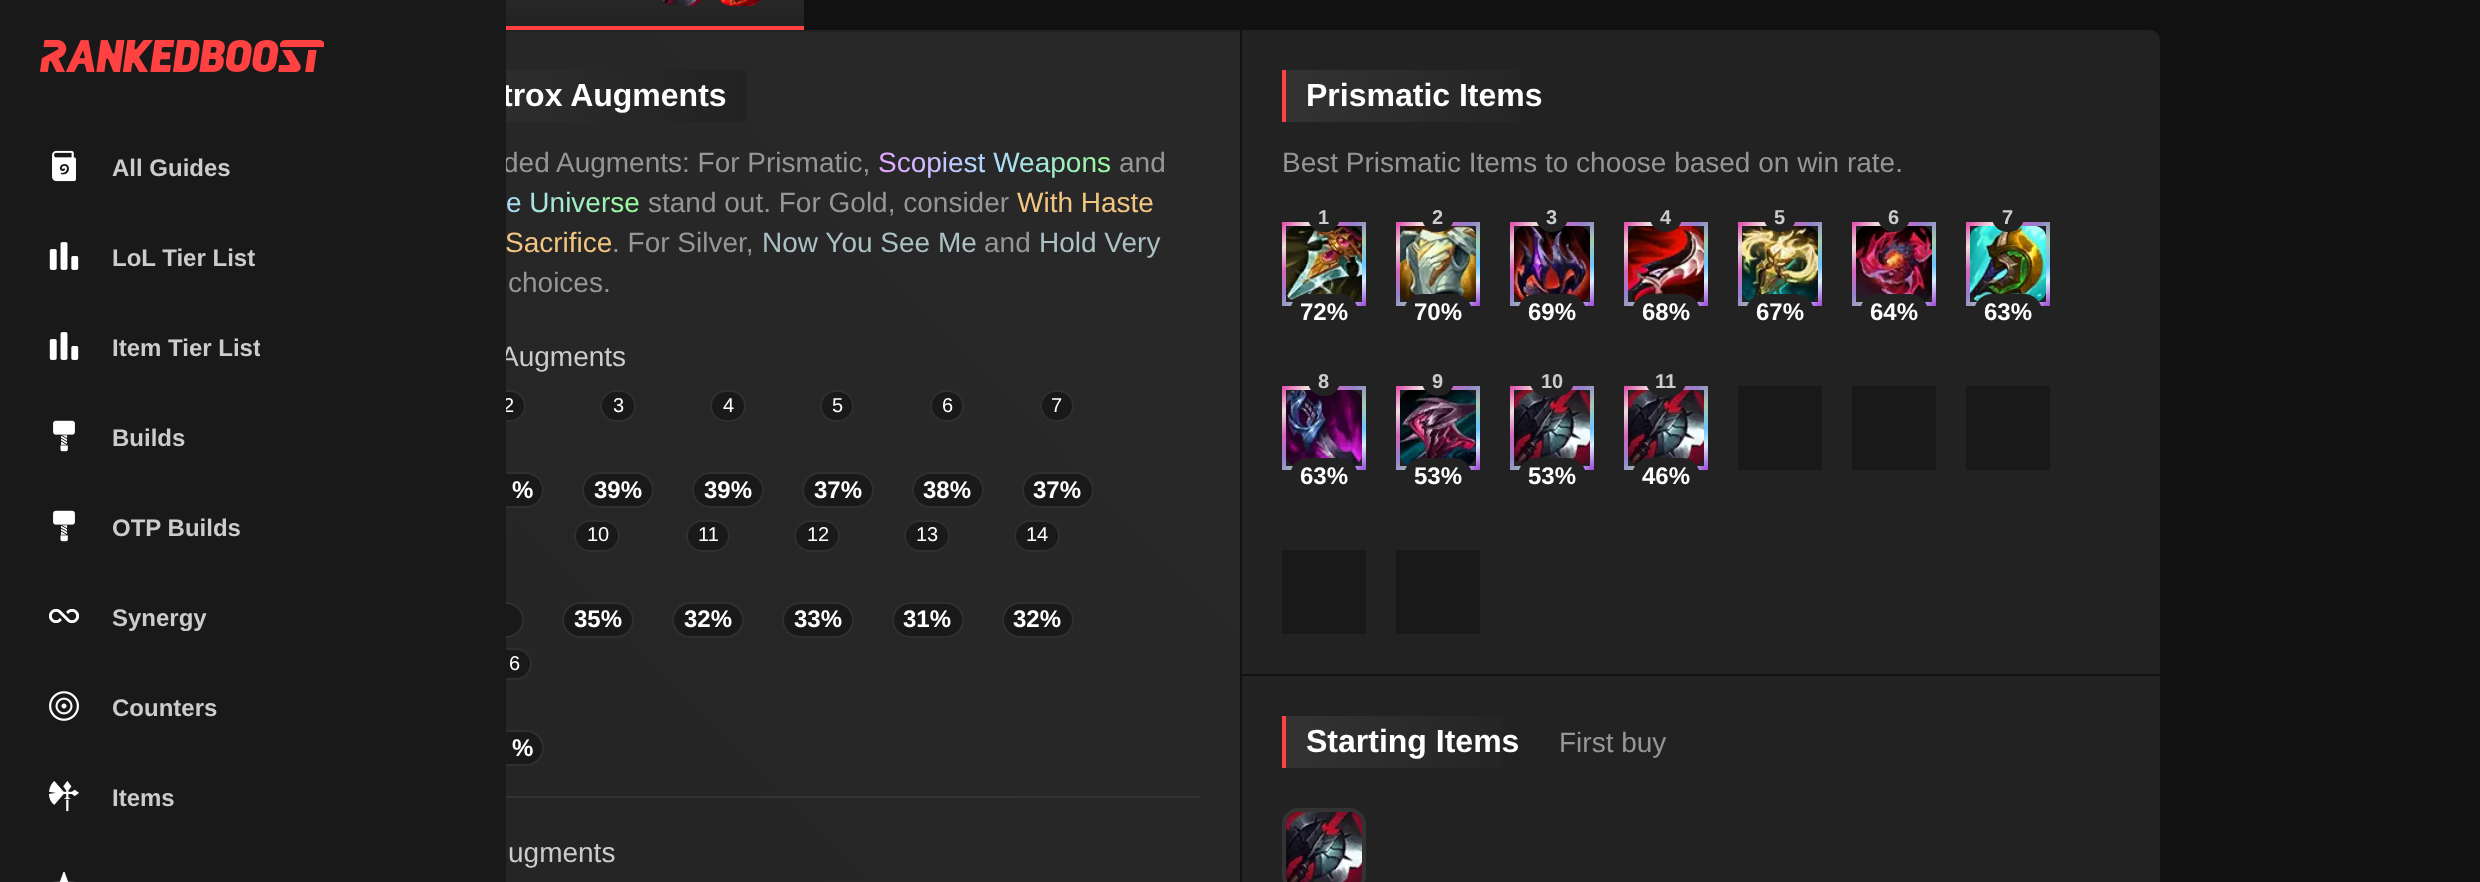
<!DOCTYPE html>
<meta charset="utf-8">
<style>body { margin: 0 } canvas { display: block }</style>
<canvas id="canvas" width="2480" height="882"></canvas>
<script type="module">
  const canvas = document.getElementById("canvas");
  const g = canvas.getContext("2d");
  g.miterLimit = 4;
  g.fontKerning = "normal";
  function drawText(s, x, y, [font, color]) {
    g.font = font;
    g.fillStyle = color;
    g.fillText(s, x, y);
  }
  function fillBox(x, y, w, h, color) {
    g.fillStyle = color;
    g.fillRect(x, y, w, h);
  }
  function fillRounded(x, y, w, h, r, color) {
    g.fillStyle = color;
    g.beginPath();
    g.roundRect(x, y, w, h, r);
    g.fill();
  }
  async function drawPicture(src, x, y, w, h) {
    const img = new Image();
    img.src = src;
    await img.decode();
    g.drawImage(img, x, y, w, h);
  }
  let gradient;

  const s1 = ["bold 32px Liberation Sans", "#FFFFFF"];
  const s2 = ["28px Liberation Sans", "#969696"];
  const s3 = ["28px Liberation Sans", "#CCCCCC"];
  const s4 = ["20px Liberation Sans", "#FFFFFF"];
  const s5 = ["bold 24px Liberation Sans", "#CCCCCC"];
  const s6 = ["28px Liberation Sans", "#F3C680"];
  const s7 = ["28px Liberation Sans", "#ABC1C4"];
  const s8 = ["bold 24px Liberation Sans", "#FFFFFF"];
  const s9 = ["bold 20px Liberation Sans", "#CCCCCC"];

  fillBox(0, 0, 2480, 882, "#111111");
  fillRounded(320, 30, 1840, 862, 10, "#222222");
  gradient = g.createLinearGradient(1456, 256, 104, 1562);
  gradient.addColorStop(0, "#292929");
  gradient.addColorStop(1, "#222222");
  g.fillStyle = gradient;
  g.fillRect(506, 32, 734, 850);
  gradient = g.createLinearGradient(364, 96, 746, 96);
  gradient.addColorStop(0, "#333333");
  gradient.addColorStop(1, "#222222");
  g.fillStyle = gradient;
  g.fillRect(506, 70, 240, 52);
  drawText("trox Augments", 502, 106, s1);
  drawText("ded Augments: For Prismatic,", 503, 172, s2);
  drawText("Augments", 500, 366, s3);
  g.fillStyle = "#191919";
  g.beginPath();
  g.roundRect(491, 391, 34, 30, 15);
  g.fill();
  g.strokeStyle = "#2F2F2F";
  g.lineWidth = 2;
  g.stroke();
  drawText("2", 503, 412, s4);
  g.fillStyle = "#191919";
  g.beginPath();
  g.roundRect(473, 473, 70, 34, 17);
  g.fill();
  g.stroke();
  g.beginPath();
  g.roundRect(453, 603, 70, 34, 17);
  g.fill();
  g.stroke();
  g.beginPath();
  g.roundRect(485, 649, 46, 30, 15);
  g.fill();
  g.stroke();
  g.beginPath();
  g.roundRect(473, 731, 70, 34, 17);
  g.fill();
  g.stroke();
  fillBox(0, 0, 506, 882, "#191919");
  await drawPicture("pic1.png", 40, 40, 284, 32);
  await drawPicture("pic2.png", 52, 150, 24, 32);
  drawText("All Guides", 112, 176, s5);
  await drawPicture("pic3.png", 49, 242, 30, 28);
  drawText("LoL Tier List", 112, 266, s5);
  await drawPicture("pic3.png", 49, 332, 30, 28);
  g.save();
  g.beginPath();
  g.rect(112, 330, 148, 36);
  g.clip();
  drawText("Item Tier List", 112, 356, s5);
  g.restore();
  await drawPicture("pic4.png", 53, 420, 22, 32);
  drawText("Builds", 112, 446, s5);
  await drawPicture("pic4.png", 53, 510, 22, 32);
  drawText("OTP Builds", 112, 536, s5);
  await drawPicture("pic5.png", 49, 608, 30, 16);
  drawText("Synergy", 112, 626, s5);
  await drawPicture("pic6.png", 49, 691, 30, 30);
  drawText("Counters", 112, 716, s5);
  await drawPicture("pic7.png", 49, 780, 30, 32);
  drawText("Items", 112, 806, s5);
  await drawPicture("pic8.png", 51, 871, 26, 11);
  gradient = g.createLinearGradient(562, -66, 562, 28);
  gradient.addColorStop(0, "#333333");
  gradient.addColorStop(1, "#222222");
  g.fillStyle = gradient;
  g.fillRect(506, 0, 298, 26);
  await drawPicture("pic9.png", 662, 0, 40, 6);
  await drawPicture("pic10.png", 719, 0, 41, 6);
  fillBox(506, 26, 298, 4, "#FF4141");
  g.font = "28px Liberation Sans";
  gradient = g.createLinearGradient(878, 162, 1111, 162);
  gradient.addColorStop(0, "#E7A4FF");
  gradient.addColorStop(0.5, "#ABDCFF");
  gradient.addColorStop(1, "#98FB98");
  g.fillStyle = gradient;
  g.fillText("Scopiest Weapons", 878, 172);
  drawText("and", 1119, 172, s2);
  gradient = g.createLinearGradient(360, 202, 640, 202);
  gradient.addColorStop(0, "#E7A4FF");
  gradient.addColorStop(0.5, "#ABDCFF");
  gradient.addColorStop(1, "#98FB98");
  g.fillStyle = gradient;
  g.fillText("e Universe", 506, 212);
  drawText("stand out. For Gold, consider", 648, 212, s2);
  drawText("With Haste", 1017, 212, s6);
  drawText("Sacrifice", 505, 252, s6);
  drawText(". For Silver,", 612, 252, s2);
  drawText("Now You See Me", 762, 252, s7);
  drawText("and", 984, 252, s2);
  drawText("Hold Very", 1039, 252, s7);
  drawText("choices.", 508, 292, s2);
  fillBox(506, 796, 694, 2, "#333333");
  drawText("%", 512, 498, s8);
  g.fillStyle = "#191919";
  g.beginPath();
  g.roundRect(601, 391, 34, 30, 15);
  g.fill();
  g.stroke();
  drawText("3", 613, 412, s4);
  g.fillStyle = "#191919";
  g.beginPath();
  g.roundRect(583, 473, 70, 34, 17);
  g.fill();
  g.stroke();
  drawText("39%", 594, 498, s8);
  g.fillStyle = "#191919";
  g.beginPath();
  g.roundRect(711, 391, 34, 30, 15);
  g.fill();
  g.stroke();
  drawText("4", 723, 412, s4);
  g.fillStyle = "#191919";
  g.beginPath();
  g.roundRect(693, 473, 70, 34, 17);
  g.fill();
  g.stroke();
  drawText("39%", 704, 498, s8);
  g.fillStyle = "#191919";
  g.beginPath();
  g.roundRect(821, 391, 32, 30, 15);
  g.fill();
  g.stroke();
  drawText("5", 832, 412, s4);
  g.fillStyle = "#191919";
  g.beginPath();
  g.roundRect(803, 473, 70, 34, 17);
  g.fill();
  g.stroke();
  drawText("37%", 814, 498, s8);
  g.fillStyle = "#191919";
  g.beginPath();
  g.roundRect(931, 391, 32, 30, 15);
  g.fill();
  g.stroke();
  drawText("6", 942, 412, s4);
  g.fillStyle = "#191919";
  g.beginPath();
  g.roundRect(913, 473, 70, 34, 17);
  g.fill();
  g.stroke();
  drawText("38%", 923, 498, s8);
  g.fillStyle = "#191919";
  g.beginPath();
  g.roundRect(1041, 391, 32, 30, 15);
  g.fill();
  g.stroke();
  drawText("7", 1051, 412, s4);
  g.fillStyle = "#191919";
  g.beginPath();
  g.roundRect(1023, 473, 70, 34, 17);
  g.fill();
  g.stroke();
  drawText("37%", 1033, 498, s8);
  g.fillStyle = "#191919";
  g.beginPath();
  g.roundRect(575, 521, 44, 30, 15);
  g.fill();
  g.stroke();
  drawText("10", 587, 541, s4);
  g.fillStyle = "#191919";
  g.beginPath();
  g.roundRect(563, 603, 70, 34, 17);
  g.fill();
  g.stroke();
  drawText("35%", 574, 627, s8);
  g.fillStyle = "#191919";
  g.beginPath();
  g.roundRect(687, 521, 42, 30, 15);
  g.fill();
  g.stroke();
  drawText("11", 698, 541, s4);
  g.fillStyle = "#191919";
  g.beginPath();
  g.roundRect(673, 603, 70, 34, 17);
  g.fill();
  g.stroke();
  drawText("32%", 684, 627, s8);
  g.fillStyle = "#191919";
  g.beginPath();
  g.roundRect(795, 521, 44, 30, 15);
  g.fill();
  g.stroke();
  drawText("12", 807, 541, s4);
  g.fillStyle = "#191919";
  g.beginPath();
  g.roundRect(783, 603, 70, 34, 17);
  g.fill();
  g.stroke();
  drawText("33%", 794, 627, s8);
  g.fillStyle = "#191919";
  g.beginPath();
  g.roundRect(905, 521, 44, 30, 15);
  g.fill();
  g.stroke();
  drawText("13", 916, 541, s4);
  g.fillStyle = "#191919";
  g.beginPath();
  g.roundRect(893, 603, 70, 34, 17);
  g.fill();
  g.stroke();
  drawText("31%", 903, 627, s8);
  g.fillStyle = "#191919";
  g.beginPath();
  g.roundRect(1015, 521, 44, 30, 15);
  g.fill();
  g.stroke();
  drawText("14", 1026, 541, s4);
  g.fillStyle = "#191919";
  g.beginPath();
  g.roundRect(1003, 603, 70, 34, 17);
  g.fill();
  g.stroke();
  drawText("32%", 1013, 627, s8);
  drawText("6", 509, 670, s4);
  drawText("%", 512, 756, s8);
  drawText("ugments", 508, 862, s3);
  fillBox(1240, 30, 2, 852, "#111111");
  fillBox(1242, 674, 918, 2, "#111111");
  gradient = g.createLinearGradient(1286, 96, 1562, 96);
  gradient.addColorStop(0, "#333333");
  gradient.addColorStop(1, "#222222");
  g.fillStyle = gradient;
  g.fillRect(1286, 70, 235, 52);
  fillBox(1282, 70, 4, 52, "#FF4141");
  drawText("Prismatic Items", 1306, 106, s1);
  drawText("Best Prismatic Items to choose based on win rate.", 1282, 172, s2);
  await drawPicture("pic11.png", 1282, 222, 84, 84);
  await drawPicture("pic12.png", 1286, 226, 76, 76);
  fillRounded(1308, 202, 32, 30, 15, "#222222");
  drawText("1", 1318, 224, s9);
  fillRounded(1290, 294, 68, 36, 18, "#222222");
  drawText("72%", 1300, 320, s8);
  await drawPicture("pic13.png", 1396, 222, 84, 84);
  await drawPicture("pic14.png", 1400, 226, 76, 76);
  fillRounded(1422, 202, 32, 30, 15, "#222222");
  drawText("2", 1432, 224, s9);
  fillRounded(1404, 294, 68, 36, 18, "#222222");
  drawText("70%", 1414, 320, s8);
  await drawPicture("pic15.png", 1510, 222, 84, 84);
  await drawPicture("pic16.png", 1514, 226, 76, 76);
  fillRounded(1536, 202, 32, 30, 15, "#222222");
  drawText("3", 1546, 224, s9);
  fillRounded(1518, 294, 68, 36, 18, "#222222");
  drawText("69%", 1528, 320, s8);
  await drawPicture("pic17.png", 1624, 222, 84, 84);
  await drawPicture("pic18.png", 1628, 226, 76, 76);
  fillRounded(1650, 202, 32, 30, 15, "#222222");
  drawText("4", 1660, 224, s9);
  fillRounded(1632, 294, 68, 36, 18, "#222222");
  drawText("68%", 1642, 320, s8);
  await drawPicture("pic19.png", 1738, 222, 84, 84);
  await drawPicture("pic20.png", 1742, 226, 76, 76);
  fillRounded(1764, 202, 32, 30, 15, "#222222");
  drawText("5", 1774, 224, s9);
  fillRounded(1746, 294, 68, 36, 18, "#222222");
  drawText("67%", 1756, 320, s8);
  await drawPicture("pic21.png", 1852, 222, 84, 84);
  await drawPicture("pic22.png", 1856, 226, 76, 73);
  fillRounded(1878, 202, 32, 30, 15, "#222222");
  drawText("6", 1888, 224, s9);
  fillRounded(1860, 294, 68, 36, 18, "#222222");
  drawText("64%", 1870, 320, s8);
  await drawPicture("pic23.png", 1966, 222, 84, 84);
  await drawPicture("pic24.png", 1970, 226, 76, 76);
  fillRounded(1992, 202, 32, 30, 15, "#222222");
  drawText("7", 2002, 224, s9);
  fillRounded(1974, 294, 68, 36, 18, "#222222");
  drawText("63%", 1984, 320, s8);
  await drawPicture("pic25.png", 1282, 386, 84, 84);
  await drawPicture("pic26.png", 1286, 390, 76, 76);
  fillRounded(1308, 366, 32, 30, 15, "#222222");
  drawText("8", 1318, 388, s9);
  fillRounded(1290, 458, 68, 36, 18, "#222222");
  drawText("63%", 1300, 484, s8);
  await drawPicture("pic27.png", 1396, 386, 84, 84);
  await drawPicture("pic28.png", 1400, 390, 76, 76);
  fillRounded(1422, 366, 32, 30, 15, "#222222");
  drawText("9", 1432, 388, s9);
  fillRounded(1404, 458, 68, 36, 18, "#222222");
  drawText("53%", 1414, 484, s8);
  await drawPicture("pic29.png", 1510, 386, 84, 84);
  await drawPicture("pic30.png", 1514, 390, 76, 76);
  fillRounded(1530, 366, 44, 30, 15, "#222222");
  drawText("10", 1541, 388, s9);
  fillRounded(1518, 458, 68, 36, 18, "#222222");
  drawText("53%", 1528, 484, s8);
  await drawPicture("pic29.png", 1624, 386, 84, 84);
  await drawPicture("pic30.png", 1628, 390, 76, 76);
  fillRounded(1646, 366, 40, 30, 15, "#222222");
  drawText("11", 1655, 388, s9);
  fillRounded(1632, 458, 68, 36, 18, "#222222");
  drawText("46%", 1642, 484, s8);
  fillBox(1738, 386, 84, 84, "#191919");
  fillBox(1852, 386, 84, 84, "#191919");
  fillBox(1966, 386, 84, 84, "#191919");
  fillBox(1282, 550, 84, 84, "#191919");
  fillBox(1396, 550, 84, 84, "#191919");
  gradient = g.createLinearGradient(1286, 742, 1540, 742);
  gradient.addColorStop(0, "#333333");
  gradient.addColorStop(1, "#222222");
  g.fillStyle = gradient;
  g.fillRect(1286, 716, 217, 52);
  fillBox(1282, 716, 4, 52, "#FF4141");
  drawText("Starting Items", 1306, 752, s1);
  drawText("First buy", 1559, 752, s2);
  g.beginPath();
  g.roundRect(1284, 810, 80, 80, 14);
  g.strokeStyle = "#333333";
  g.lineWidth = 4;
  g.stroke();
  await drawPicture("pic31.png", 1286, 812, 76, 70);
</script>
